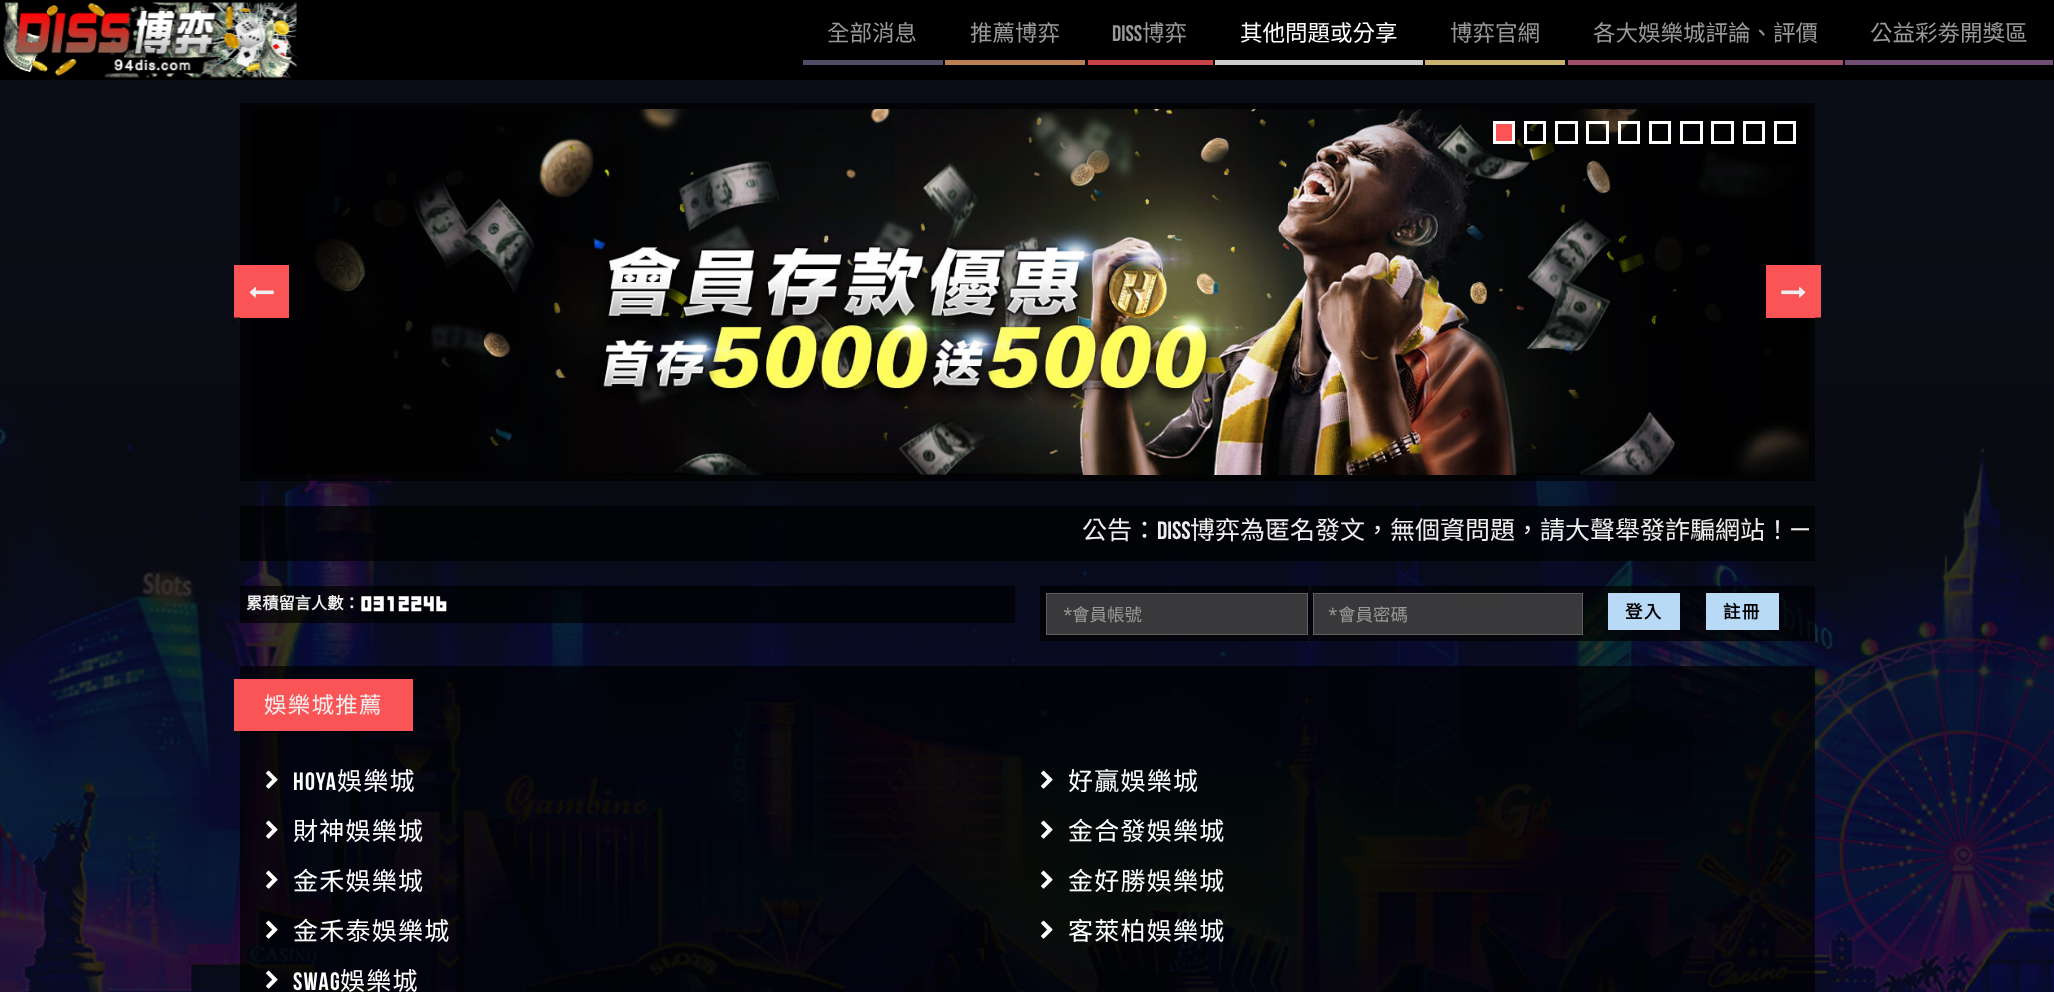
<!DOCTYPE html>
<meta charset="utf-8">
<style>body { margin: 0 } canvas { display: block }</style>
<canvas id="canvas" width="2054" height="992"></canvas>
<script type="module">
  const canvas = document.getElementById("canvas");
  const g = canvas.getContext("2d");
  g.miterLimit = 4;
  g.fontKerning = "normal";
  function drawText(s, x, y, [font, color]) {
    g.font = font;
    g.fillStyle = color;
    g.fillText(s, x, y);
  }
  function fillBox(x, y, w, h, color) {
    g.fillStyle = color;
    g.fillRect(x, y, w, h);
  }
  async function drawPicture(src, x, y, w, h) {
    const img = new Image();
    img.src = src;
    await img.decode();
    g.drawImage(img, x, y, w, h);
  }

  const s1 = ["22.5px Noto Sans CJK TC", "#999999"];
  const s2 = ["22.5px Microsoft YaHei", "#999999"];
  const s3 = ["22.5px Noto Sans CJK TC", "#FFFFFF"];
  const s4 = ["25px Noto Sans CJK TC", "#EEEEEE"];
  const s5 = ["25px Microsoft YaHei", "#EEEEEE"];
  const s6 = ["bold 16.25px Noto Sans CJK TC", "#EEEEEE"];
  const s7 = ["17.5px Open Sans", "#999999"];
  const s8 = ["17.5px Noto Sans CJK TC", "#999999"];
  const s9 = ["bold 17.5px Noto Sans CJK TC", "#000000"];
  const s10 = ["22.5px Noto Sans CJK TC", "#EEEEEE"];
  const s11 = ["25px Microsoft YaHei", "#FFFFFF"];
  const s12 = ["25px Noto Sans CJK TC", "#FFFFFF"];

  fillBox(0, 0, 2054, 992, "#FFFFFF");
  await drawPicture("pic1.png", 0, 80, 2054, 912);
  fillBox(0, 0, 2054, 80, "#000000");
  await drawPicture("pic2.png", 3, 2, 294, 76);
  drawText("全部消息", 827, 41, s1);
  fillBox(803, 60, 140, 5, "#4F4E66");
  drawText("推薦博弈", 970, 41, s1);
  fillBox(945, 60, 140, 5, "#BC7E53");
  drawText("DISS", 1112, 41, s2);
  drawText("博弈", 1142, 41, s1);
  fillBox(1088, 60, 125, 5, "#C84345");
  drawText("其他問題或分享", 1240, 41, s3);
  fillBox(1215, 60, 208, 5, "#CCCCCC");
  drawText("博弈官網", 1450, 41, s1);
  fillBox(1425, 60, 140, 5, "#C9B26E");
  drawText("各大娛樂城評論、評價", 1593, 41, s1);
  fillBox(1568, 60, 275, 5, "#9E506A");
  drawText("公益彩劵開獎區", 1870, 41, s1);
  fillBox(1845, 60, 208, 5, "#704D74");
  fillBox(240, 103, 1575, 378, "rgba(0, 0, 0, 0.7)");
  await drawPicture("pic3.png", 252, 109, 1557, 366);
  g.fillStyle = "#FA5456";
  g.beginPath();
  g.rect(1494.5, 122.5, 19, 20);
  g.fill();
  g.strokeStyle = "#FFFFFF";
  g.lineWidth = 3;
  g.stroke();
  g.strokeRect(1525.5, 122.5, 19, 20);
  g.strokeRect(1556.5, 122.5, 20, 20);
  g.strokeRect(1587.5, 122.5, 20, 20);
  g.strokeRect(1619.5, 122.5, 19, 20);
  g.strokeRect(1650.5, 122.5, 19, 20);
  g.strokeRect(1681.5, 122.5, 20, 20);
  g.strokeRect(1712.5, 122.5, 20, 20);
  g.strokeRect(1744.5, 122.5, 19, 20);
  g.strokeRect(1775.5, 122.5, 19, 20);
  g.fillStyle = "rgba(0, 0, 0, 0.5)";
  g.filter = "blur(0.5px)";
  g.beginPath();
  g.rect(234, 266, 55, 53);
  g.fill();
  g.filter = "none";
  fillBox(234, 265, 55, 53, "#FA5456");
  await drawPicture("pic4.png", 249, 287, 25, 11);
  g.fillStyle = "#111111";
  g.beginPath();
  g.moveTo(240, 317.5);
  g.lineTo(240, 324);
  g.lineTo(234, 317.5);
  g.closePath();
  g.fill();
  g.fillStyle = "rgba(0, 0, 0, 0.5)";
  g.filter = "blur(0.5px)";
  g.beginPath();
  g.rect(1766, 266, 55, 53);
  g.fill();
  g.filter = "none";
  fillBox(1766, 265, 55, 53, "#FA5456");
  await drawPicture("pic5.png", 1781, 287, 25, 11);
  g.fillStyle = "#111111";
  g.beginPath();
  g.moveTo(1815, 324);
  g.lineTo(1815, 317.5);
  g.lineTo(1821, 317.5);
  g.closePath();
  g.fill();
  fillBox(240, 506, 1575, 55, "rgba(0, 0, 0, 0.7)");
  drawText("公告：", 1082, 539, s4);
  drawText("DISS", 1157, 539, s5);
  g.save();
  g.beginPath();
  g.rect(246, 513, 1563, 36);
  g.clip();
  drawText("博弈為匿名發文，無個資問題，請大聲舉發詐騙網站！一", 1190, 539, s4);
  g.restore();
  fillBox(240, 586, 775, 37, "rgba(0, 0, 0, 0.7)");
  drawText("累積留言人數：", 246, 609, s6);
  await drawPicture("pic6.png", 361, 596, 86, 16);
  fillBox(1040, 586, 775, 55, "rgba(0, 0, 0, 0.7)");
  fillBox(1047, 594, 260, 40, "rgba(76, 76, 76, 0.75)");
  fillBox(1048, 594, 258, 1, "#353537");
  g.strokeStyle = "#606060";
  g.lineWidth = 1;
  g.strokeRect(1046.5, 593.5, 261, 41);
  drawText("*", 1063, 621, s7);
  drawText("會員帳號", 1072, 621, s8);
  fillBox(1314, 594, 268, 40, "rgba(76, 76, 76, 0.75)");
  fillBox(1314, 594, 267, 1, "#353537");
  g.strokeRect(1313.5, 593.5, 269, 41);
  drawText("*", 1328, 621, s7);
  drawText("會員密碼", 1338, 621, s8);
  fillBox(1608, 593, 72, 37, "#B8DAF7");
  g.letterSpacing = "1.25px";
  drawText("登入", 1625, 618, s9);
  fillBox(1706, 593, 73, 37, "#B8DAF7");
  drawText("註冊", 1723, 618, s9);
  fillBox(240, 666, 1575, 326, "rgba(0, 0, 0, 0.7)");
  g.fillStyle = "rgba(0, 0, 0, 0.5)";
  g.filter = "blur(0.5px)";
  g.beginPath();
  g.rect(234, 680, 179, 53);
  g.fill();
  g.filter = "none";
  fillBox(234, 679, 179, 52, "#FA5456");
  drawText("娛樂城推薦", 264, 713, s10);
  g.fillStyle = "#111111";
  g.beginPath();
  g.moveTo(240, 731);
  g.lineTo(240, 737.5);
  g.lineTo(234, 731);
  g.closePath();
  g.fill();
  await drawPicture("pic7.png", 266, 770, 12, 19);
  drawText("HOYA", 293, 790, s11);
  drawText("娛樂城", 337, 790, s12);
  await drawPicture("pic8.png", 1041, 770, 12, 19);
  drawText("好贏娛樂城", 1068, 790, s12);
  await drawPicture("pic9.png", 266, 820, 12, 19);
  drawText("財神娛樂城", 293, 840, s12);
  await drawPicture("pic10.png", 1041, 820, 12, 19);
  drawText("金合發娛樂城", 1068, 840, s12);
  await drawPicture("pic11.png", 266, 870, 12, 19);
  drawText("金禾娛樂城", 293, 890, s12);
  await drawPicture("pic12.png", 1041, 870, 12, 19);
  drawText("金好勝娛樂城", 1068, 890, s12);
  await drawPicture("pic13.png", 266, 920, 12, 19);
  drawText("金禾泰娛樂城", 293, 940, s12);
  await drawPicture("pic14.png", 1041, 920, 12, 19);
  drawText("客萊柏娛樂城", 1068, 940, s12);
  await drawPicture("pic15.png", 266, 970, 12, 19);
  drawText("SWAG", 293, 990, s11);
  drawText("娛樂城", 340, 990, s12);
</script>
